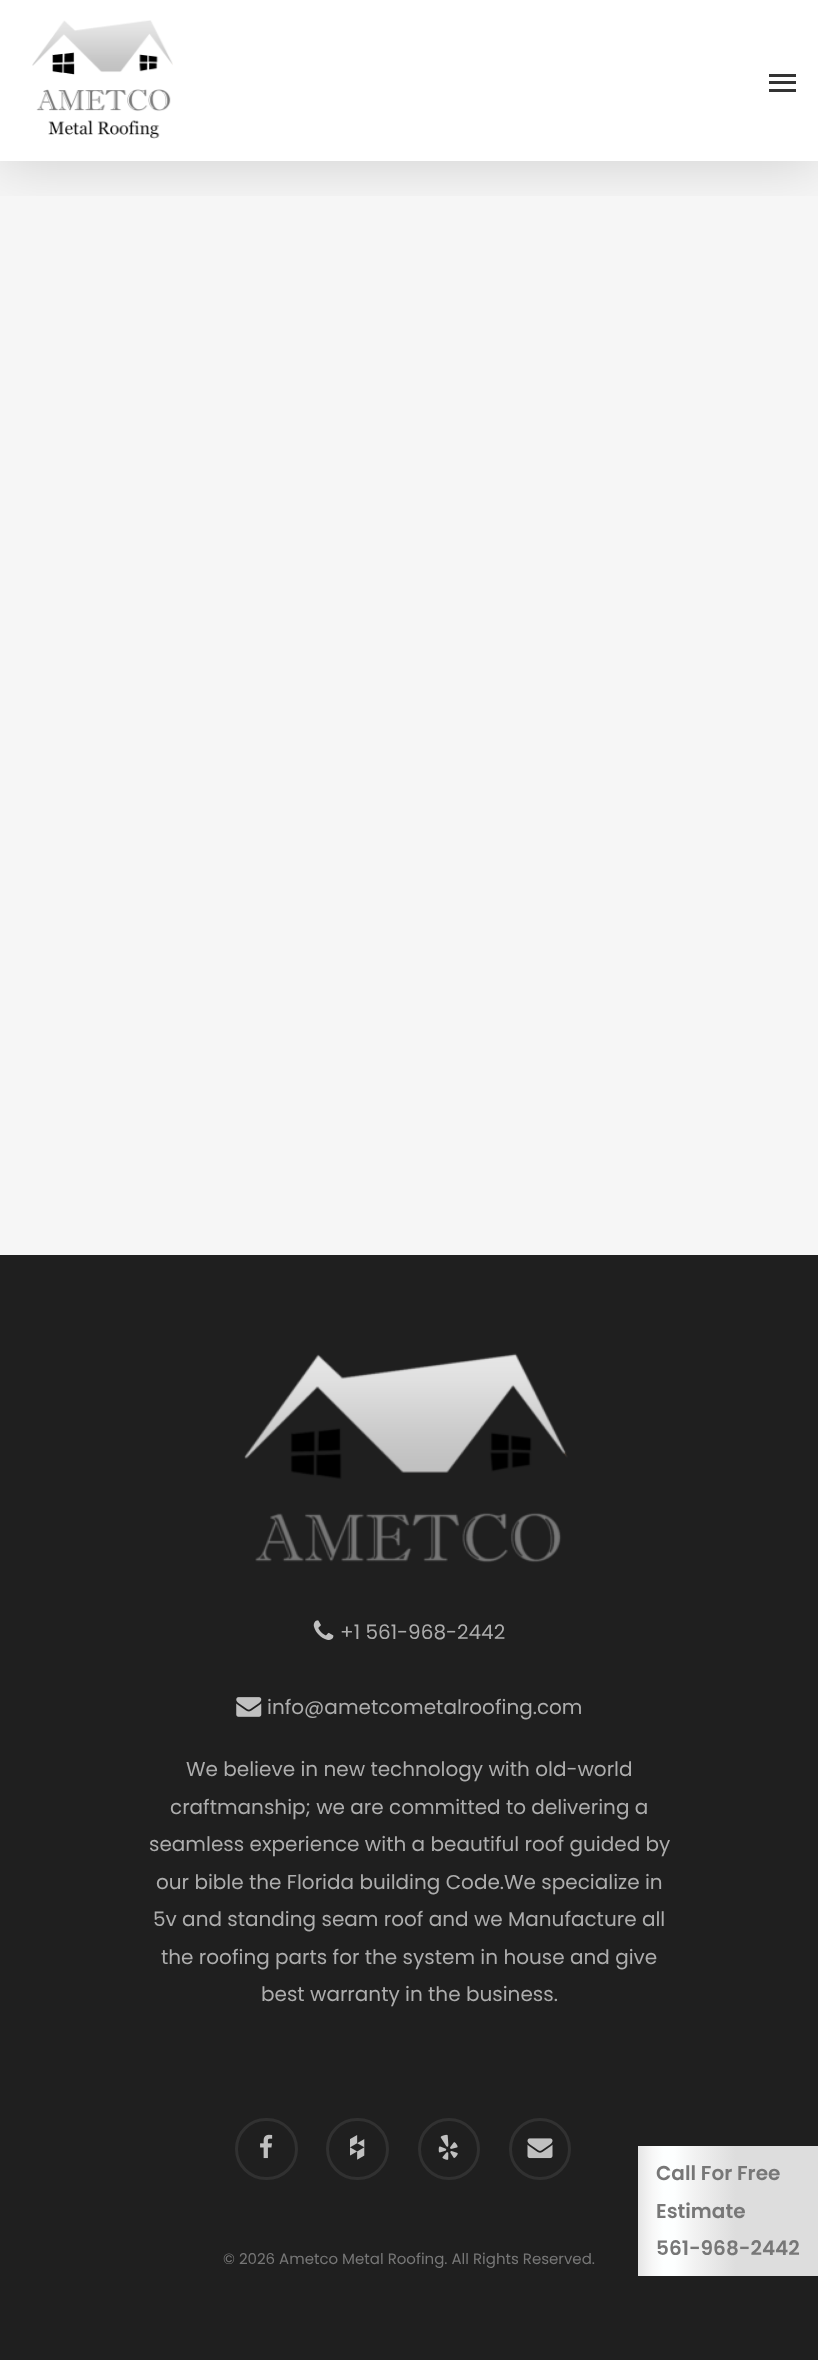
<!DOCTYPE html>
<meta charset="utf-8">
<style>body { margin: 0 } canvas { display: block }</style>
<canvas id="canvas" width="818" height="2360"></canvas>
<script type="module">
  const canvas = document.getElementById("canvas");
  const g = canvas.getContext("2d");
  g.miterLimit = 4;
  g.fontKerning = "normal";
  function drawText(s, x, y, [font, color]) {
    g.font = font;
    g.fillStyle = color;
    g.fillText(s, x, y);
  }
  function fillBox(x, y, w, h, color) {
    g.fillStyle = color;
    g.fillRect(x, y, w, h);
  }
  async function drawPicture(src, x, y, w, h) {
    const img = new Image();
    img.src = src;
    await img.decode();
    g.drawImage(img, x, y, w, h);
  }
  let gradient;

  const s1 = ["20px Poppins", "#ADADAD"];
  const s2 = ["15px Poppins", "#777777"];
  const s3 = ["600 20px Poppins", "#777777"];

  fillBox(0, 0, 818, 2360, "#FFFFFF");
  fillBox(0, 161, 818, 1094, "#F6F6F6");
  g.save();
  g.beginPath();
  g.rect(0, 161, 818, 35);
  g.clip();
  g.fillStyle = "rgba(0, 0, 0, 0.15)";
  g.filter = "blur(28px)";
  g.beginPath();
  g.rect(0, 4, 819, 161);
  g.fill();
  g.filter = "none";
  g.restore();
  await drawPicture("pic1.png", 32, 20, 141, 119);
  fillBox(769, 74, 27, 3, "#333333");
  fillBox(769, 89, 27, 3, "#333333");
  fillBox(769, 81, 27, 3, "#333333");
  fillBox(0, 1255, 818, 1105, "#1F1F1F");
  await drawPicture("pic2.png", 244, 1353, 324, 210);
  await drawPicture("pic3.png", 313, 1620, 21, 20);
  drawText("+1 561-968-2442", 340, 1639, s1);
  await drawPicture("pic4.png", 236, 1697, 26, 20);
  drawText("info@ametcometalroofing.com", 267, 1714, s1);
  drawText("We believe in new technology with old-world", 186, 1776, s1);
  drawText("craftmanship; we are committed to delivering a", 170, 1814, s1);
  drawText("seamless experience with a beautiful roof guided by", 149, 1851, s1);
  drawText("our bible the Florida building Code.We specialize in", 156, 1889, s1);
  drawText("5v and standing seam roof and we Manufacture all", 153, 1926, s1);
  drawText("the roofing parts for the system in house and give", 161, 1964, s1);
  drawText("best warranty in the business.", 261, 2001, s1);
  await drawPicture("pic5.png", 260, 2134, 13, 25);
  g.beginPath();
  g.roundRect(236.5, 2119.5, 60, 59, 29.5);
  g.strokeStyle = "#313131";
  g.lineWidth = 3;
  g.stroke();
  await drawPicture("pic6.png", 350, 2135, 15, 25);
  g.beginPath();
  g.roundRect(327.5, 2119.5, 60, 59, 29.5);
  g.stroke();
  await drawPicture("pic7.png", 438, 2134, 20, 26);
  g.beginPath();
  g.arc(449, 2149, 29.5, 0, Math.PI * 2);
  g.stroke();
  await drawPicture("pic8.png", 527, 2138, 26, 21);
  g.beginPath();
  g.arc(540, 2149, 29.5, 0, Math.PI * 2);
  g.stroke();
  drawText("© 2026 Ametco Metal Roofing. All Rights Reserved.", 223, 2264, s2);
  gradient = g.createLinearGradient(638, 2211, 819, 2211);
  gradient.addColorStop(0, "#E5E5E5");
  gradient.addColorStop(0.08, "#F7F7F7");
  gradient.addColorStop(0.14, "#FDFFFF");
  gradient.addColorStop(0.2, "#FDFFFF");
  gradient.addColorStop(0.31, "#F2F2F2");
  gradient.addColorStop(0.54, "#DDDDDD");
  g.fillStyle = gradient;
  g.fillRect(638, 2146, 180, 130);
  drawText("Call For Free", 656, 2180, s3);
  drawText("Estimate", 656, 2218, s3);
  drawText("561-968-2442", 656, 2255, s3);
</script>
